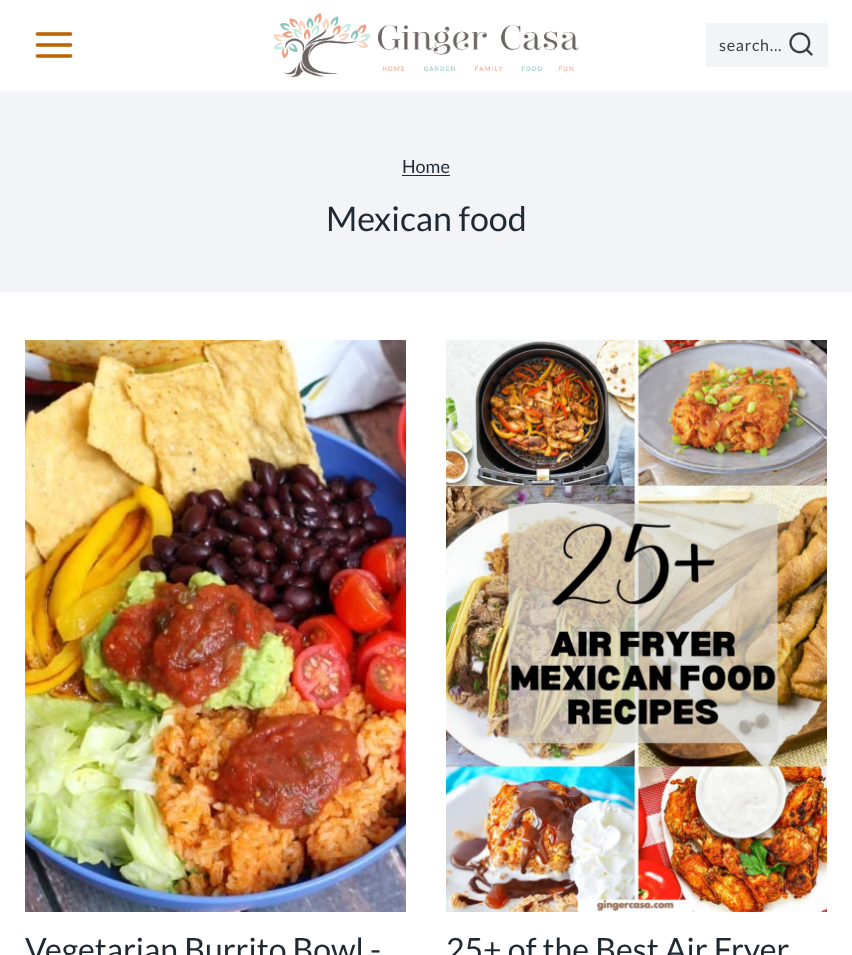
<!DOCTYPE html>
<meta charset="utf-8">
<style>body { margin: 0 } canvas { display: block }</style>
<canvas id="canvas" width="852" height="955"></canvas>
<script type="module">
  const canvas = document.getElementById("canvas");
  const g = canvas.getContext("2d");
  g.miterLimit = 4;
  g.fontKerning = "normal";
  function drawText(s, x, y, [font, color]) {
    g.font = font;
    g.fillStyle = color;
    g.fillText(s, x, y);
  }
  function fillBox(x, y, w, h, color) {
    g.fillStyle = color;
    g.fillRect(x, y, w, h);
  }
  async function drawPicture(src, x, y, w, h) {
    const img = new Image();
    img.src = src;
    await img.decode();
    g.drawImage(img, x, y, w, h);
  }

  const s1 = ["16px Lato", "#3D3D3E"];
  const s2 = ["18px Lato", "#1F2933"];
  const s3 = ["34px Lato", "#1F2933"];
  const s4 = ["32px Lato", "#1F2933"];

  fillBox(0, 0, 852, 955, "#FFFFFF");
  fillBox(0, 90, 852, 2, "#F9F9FB");
  await drawPicture("pic1.png", 35, 32, 38, 26);
  await drawPicture("pic2.png", 273, 12, 306, 66);
  fillBox(706, 23, 122, 44, "#F3F4F7");
  g.letterSpacing = "0.75px";
  drawText("search...", 719, 51, s1);
  await drawPicture("pic3.png", 789, 32, 24, 24);
  fillBox(0, 92, 852, 200, "#F3F4F7");
  g.letterSpacing = "0px";
  drawText("Home", 402, 173, s2);
  fillBox(402, 175, 48, 1, "#1F2933");
  drawText("Mexican food", 326, 231, s3);
  await drawPicture("pic4.png", 25, 340, 381, 572);
  drawText("Vegetarian Burrito Bowl -", 25, 961, s4);
  await drawPicture("pic5.png", 446, 340, 381, 572);
  drawText("25+ of the Best Air Fryer", 446, 961, s4);
</script>
